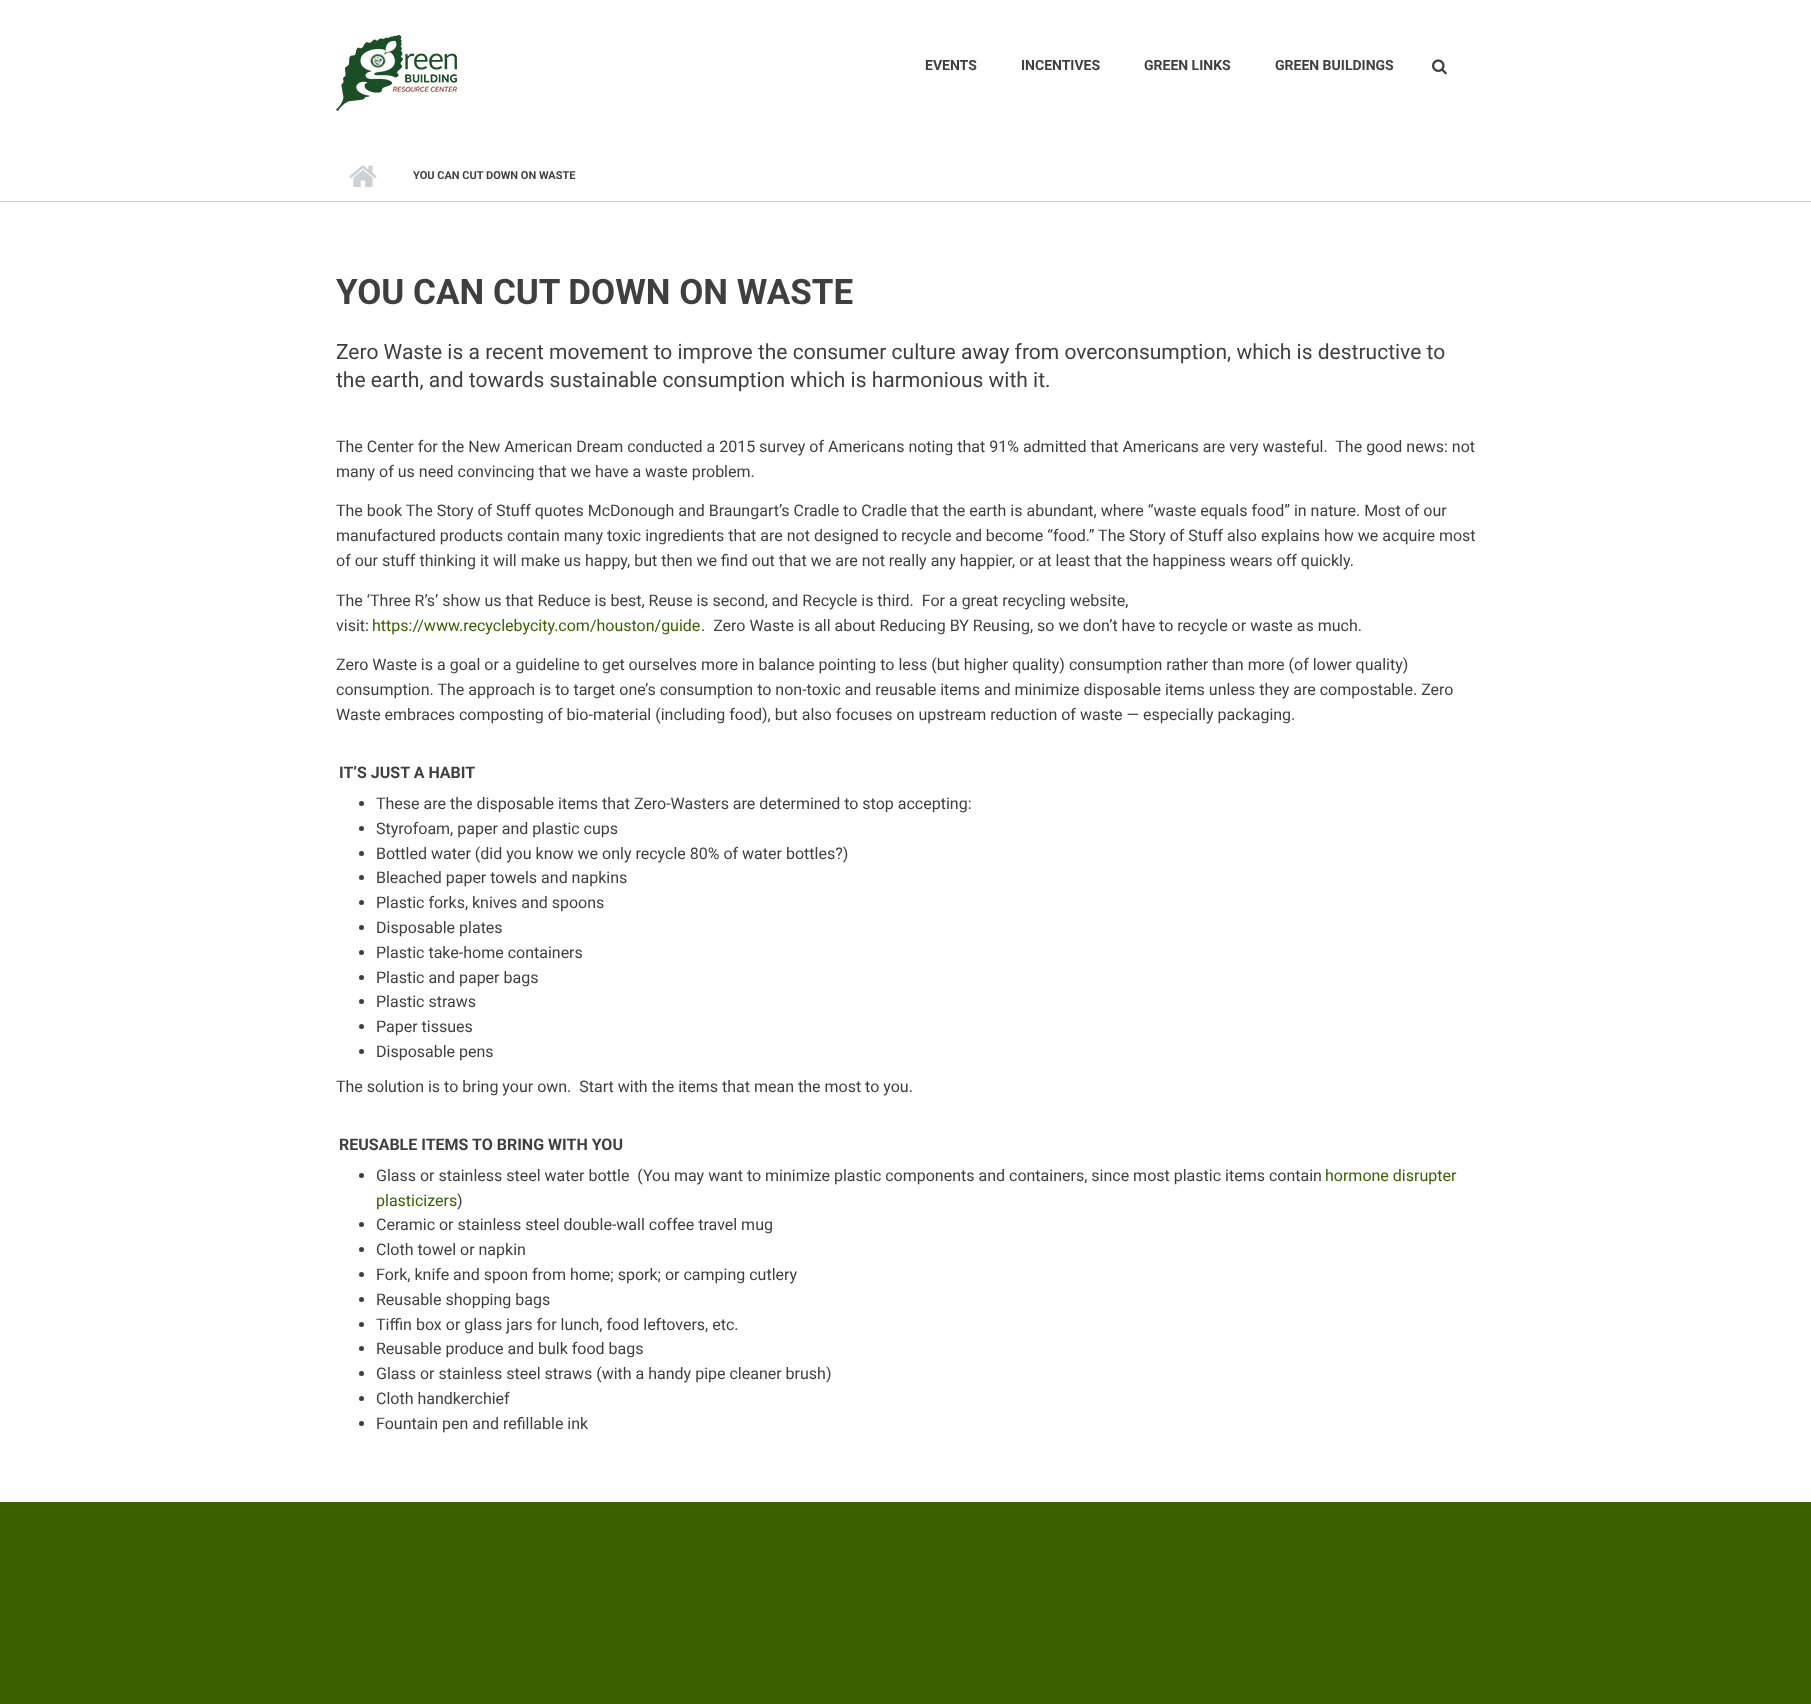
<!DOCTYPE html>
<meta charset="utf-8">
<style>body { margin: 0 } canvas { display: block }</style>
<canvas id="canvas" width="1811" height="1704"></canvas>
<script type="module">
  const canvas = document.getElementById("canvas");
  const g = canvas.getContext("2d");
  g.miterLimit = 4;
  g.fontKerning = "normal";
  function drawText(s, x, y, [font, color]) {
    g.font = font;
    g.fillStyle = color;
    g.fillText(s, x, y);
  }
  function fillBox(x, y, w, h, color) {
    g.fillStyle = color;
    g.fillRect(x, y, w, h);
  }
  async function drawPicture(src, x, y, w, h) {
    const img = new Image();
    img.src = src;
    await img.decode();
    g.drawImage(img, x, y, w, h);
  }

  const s1 = ["bold 14px Roboto", "#3F3F3F"];
  const s2 = ["bold 11px Roboto", "#3F3F3F"];
  const s3 = ["bold 35px Roboto", "#3F3F3F"];
  const s4 = ["21px Roboto", "#3F3F3F"];
  const s5 = ["16px Roboto", "#3F3F3F"];
  const s6 = ["16px Roboto", "#3B6000"];
  const s7 = ["bold 16px Roboto", "#3F3F3F"];

  fillBox(0, 0, 1811, 1704, "#FFFFFF");
  await drawPicture("pic1.png", 336, 35, 121, 76);
  drawText("EVENTS", 925, 70, s1);
  drawText("INCENTIVES", 1021, 70, s1);
  drawText("GREEN LINKS", 1144, 70, s1);
  drawText("GREEN BUILDINGS", 1275, 70, s1);
  await drawPicture("pic2.png", 1432, 59, 15, 16);
  fillBox(0, 201, 1811, 1, "#CFD0D2");
  await drawPicture("pic3.png", 349, 165, 28, 22);
  drawText("YOU CAN CUT DOWN ON WASTE", 413, 179, s2);
  drawText("YOU CAN CUT DOWN ON WASTE", 336, 304, s3);
  drawText("Zero Waste is a recent movement to improve the consumer culture away from overconsumption, which is destructive to", 336, 359, s4);
  drawText("the earth, and towards sustainable consumption which is harmonious with it.", 336, 387, s4);
  drawText("The Center for the New American Dream conducted a 2015 survey of Americans noting that 91% admitted that Americans are very wasteful.  The good news: not", 336, 452, s5);
  drawText("many of us need convincing that we have a waste problem.", 336, 477, s5);
  drawText("The book The Story of Stuff quotes McDonough and Braungart’s Cradle to Cradle that the earth is abundant, where “waste equals food” in nature. Most of our", 336, 516, s5);
  drawText("manufactured products contain many toxic ingredients that are not designed to recycle and become “food.” The Story of Stuff also explains how we acquire most", 336, 541, s5);
  drawText("of our stuff thinking it will make us happy, but then we find out that we are not really any happier, or at least that the happiness wears off quickly.", 336, 566, s5);
  drawText("The ‘Three R’s’ show us that Reduce is best, Reuse is second, and Recycle is third.  For a great recycling website,", 336, 606, s5);
  drawText("visit:", 336, 631, s5);
  drawText("https://www.recyclebycity.com/houston/guide", 372, 631, s6);
  drawText(".  Zero Waste is all about Reducing BY Reusing, so we don’t have to recycle or waste as much.", 701, 631, s5);
  drawText("Zero Waste is a goal or a guideline to get ourselves more in balance pointing to less (but higher quality) consumption rather than more (of lower quality)", 336, 670, s5);
  drawText("consumption. The approach is to target one’s consumption to non-toxic and reusable items and minimize disposable items unless they are compostable. Zero", 336, 695, s5);
  drawText("Waste embraces composting of bio-material (including food), but also focuses on upstream reduction of waste — especially packaging.", 336, 720, s5);
  drawText("IT’S JUST A HABIT", 339, 778, s7);
  g.beginPath();
  g.arc(361.5, 803.5, 2.5, 0, Math.PI * 2);
  g.fill();
  drawText("These are the disposable items that Zero-Wasters are determined to stop accepting:", 376, 809, s5);
  g.beginPath();
  g.arc(361.5, 828.5, 2.5, 0, Math.PI * 2);
  g.fill();
  drawText("Styrofoam, paper and plastic cups", 376, 834, s5);
  g.beginPath();
  g.arc(361.5, 853.5, 2.5, 0, Math.PI * 2);
  g.fill();
  drawText("Bottled water (did you know we only recycle 80% of water bottles?)", 376, 859, s5);
  g.beginPath();
  g.arc(361.5, 877.5, 2.5, 0, Math.PI * 2);
  g.fill();
  drawText("Bleached paper towels and napkins", 376, 883, s5);
  g.beginPath();
  g.arc(361.5, 902.5, 2.5, 0, Math.PI * 2);
  g.fill();
  drawText("Plastic forks, knives and spoons", 376, 908, s5);
  g.beginPath();
  g.arc(361.5, 927.5, 2.5, 0, Math.PI * 2);
  g.fill();
  drawText("Disposable plates", 376, 933, s5);
  g.beginPath();
  g.arc(361.5, 952.5, 2.5, 0, Math.PI * 2);
  g.fill();
  drawText("Plastic take-home containers", 376, 958, s5);
  g.beginPath();
  g.arc(361.5, 977.5, 2.5, 0, Math.PI * 2);
  g.fill();
  drawText("Plastic and paper bags", 376, 983, s5);
  g.beginPath();
  g.arc(361.5, 1001.5, 2.5, 0, Math.PI * 2);
  g.fill();
  drawText("Plastic straws", 376, 1007, s5);
  g.beginPath();
  g.arc(361.5, 1026.5, 2.5, 0, Math.PI * 2);
  g.fill();
  drawText("Paper tissues", 376, 1032, s5);
  g.beginPath();
  g.arc(361.5, 1051.5, 2.5, 0, Math.PI * 2);
  g.fill();
  drawText("Disposable pens", 376, 1057, s5);
  drawText("The solution is to bring your own.  Start with the items that mean the most to you.", 336, 1092, s5);
  drawText("REUSABLE ITEMS TO BRING WITH YOU", 339, 1150, s7);
  g.beginPath();
  g.arc(361.5, 1175.5, 2.5, 0, Math.PI * 2);
  g.fill();
  drawText("Glass or stainless steel water bottle  (You may want to minimize plastic components and containers, since most plastic items contain", 376, 1181, s5);
  drawText("hormone disrupter", 1325, 1181, s6);
  drawText("plasticizers", 376, 1206, s6);
  drawText(")", 457, 1206, s5);
  g.beginPath();
  g.arc(361.5, 1224.5, 2.5, 0, Math.PI * 2);
  g.fill();
  drawText("Ceramic or stainless steel double-wall coffee travel mug", 376, 1230, s5);
  g.beginPath();
  g.arc(361.5, 1249.5, 2.5, 0, Math.PI * 2);
  g.fill();
  drawText("Cloth towel or napkin", 376, 1255, s5);
  g.beginPath();
  g.arc(361.5, 1274.5, 2.5, 0, Math.PI * 2);
  g.fill();
  drawText("Fork, knife and spoon from home; spork; or camping cutlery", 376, 1280, s5);
  g.beginPath();
  g.arc(361.5, 1299.5, 2.5, 0, Math.PI * 2);
  g.fill();
  drawText("Reusable shopping bags", 376, 1305, s5);
  g.beginPath();
  g.arc(361.5, 1324.5, 2.5, 0, Math.PI * 2);
  g.fill();
  drawText("Tiffin box or glass jars for lunch, food leftovers, etc.", 376, 1330, s5);
  g.beginPath();
  g.arc(361.5, 1348.5, 2.5, 0, Math.PI * 2);
  g.fill();
  drawText("Reusable produce and bulk food bags", 376, 1354, s5);
  g.beginPath();
  g.arc(361.5, 1373.5, 2.5, 0, Math.PI * 2);
  g.fill();
  drawText("Glass or stainless steel straws (with a handy pipe cleaner brush)", 376, 1379, s5);
  g.beginPath();
  g.arc(361.5, 1398.5, 2.5, 0, Math.PI * 2);
  g.fill();
  drawText("Cloth handkerchief", 376, 1404, s5);
  g.beginPath();
  g.arc(361.5, 1423.5, 2.5, 0, Math.PI * 2);
  g.fill();
  drawText("Fountain pen and refillable ink", 376, 1429, s5);
  fillBox(0, 1502, 1811, 202, "#3B6000");
</script>
